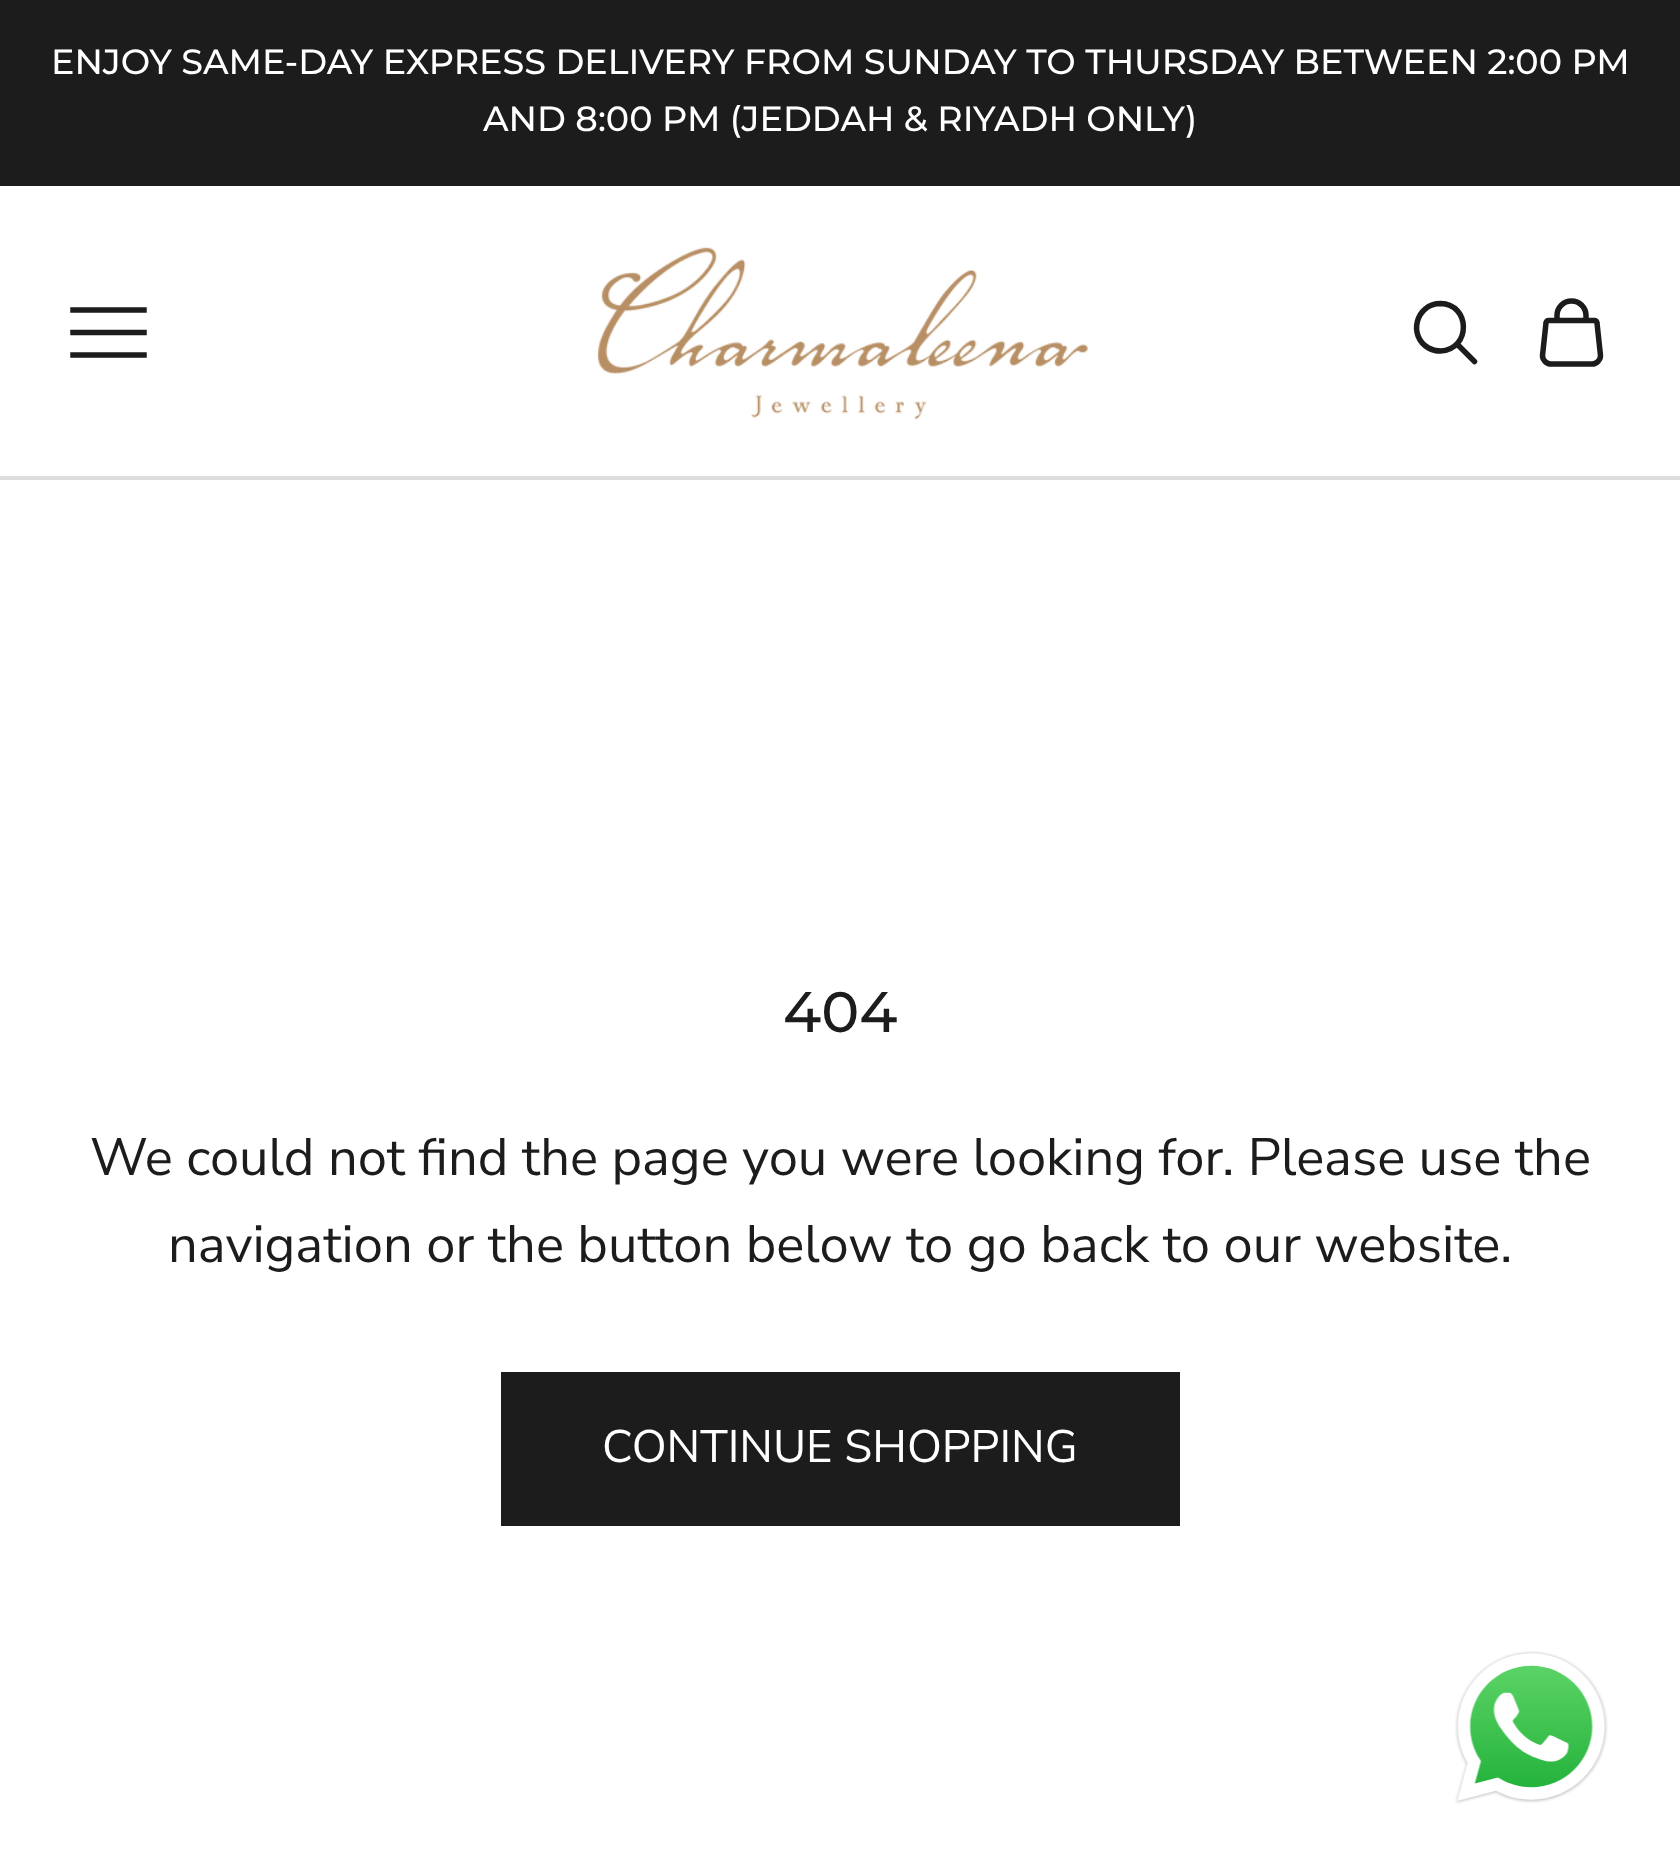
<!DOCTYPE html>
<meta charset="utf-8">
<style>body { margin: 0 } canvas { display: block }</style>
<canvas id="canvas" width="1680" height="1876"></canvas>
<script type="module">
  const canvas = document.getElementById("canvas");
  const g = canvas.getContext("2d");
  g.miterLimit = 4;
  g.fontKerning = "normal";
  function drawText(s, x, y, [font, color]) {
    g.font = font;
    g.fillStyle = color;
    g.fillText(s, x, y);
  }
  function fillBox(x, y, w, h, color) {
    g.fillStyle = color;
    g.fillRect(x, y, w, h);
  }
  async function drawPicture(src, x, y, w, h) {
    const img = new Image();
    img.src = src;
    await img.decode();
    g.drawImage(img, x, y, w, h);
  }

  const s1 = ["500 35px Montserrat", "#FFFFFF"];
  const s2 = ["500 57px Montserrat", "#1C1C1C"];
  const s3 = ["52.5px Nunito Sans", "#1C1C1C"];
  const s4 = ["45.5px Nunito Sans", "#FFFFFF"];

  fillBox(0, 0, 1680, 1876, "#FFFFFF");
  fillBox(0, 0, 1680, 186, "#1C1C1C");
  drawText("ENJOY SAME-DAY EXPRESS DELIVERY FROM SUNDAY TO THURSDAY BETWEEN 2:00 PM", 51, 74, s1);
  drawText("AND 8:00 PM (JEDDAH & RIYADH ONLY)", 483, 131, s1);
  fillBox(0, 476, 1680, 4, "#DDDDDD");
  g.beginPath();
  g.moveTo(73, 355);
  g.lineTo(144, 355);
  g.moveTo(73, 332.5);
  g.lineTo(144, 332.5);
  g.moveTo(73, 310);
  g.lineTo(144, 310);
  g.strokeStyle = "#1C1C1C";
  g.lineWidth = 5.5;
  g.lineCap = "square";
  g.stroke();
  await drawPicture("pic1.png", 597, 247, 492, 173);
  g.beginPath();
  g.moveTo(1440.5, 303.5);
  g.bezierCurveTo(1416, 303.5, 1407.5, 336, 1428.5, 348);
  g.bezierCurveTo(1432, 350, 1436, 351, 1440.5, 351);
  g.bezierCurveTo(1471.5, 349.5, 1470.5, 304, 1440.5, 303.5);
  g.closePath();
  g.lineCap = "butt";
  g.stroke();
  g.beginPath();
  g.moveTo(1458, 345);
  g.lineTo(1474.5, 361.5);
  g.lineCap = "round";
  g.stroke();
  g.beginPath();
  g.moveTo(1548, 320.5);
  g.bezierCurveTo(1547, 320.5, 1546, 321.5, 1546, 323);
  g.lineTo(1542.5, 355.5);
  g.bezierCurveTo(1542.5, 360, 1546.5, 364, 1551, 364);
  g.lineTo(1592, 364);
  g.bezierCurveTo(1596.5, 364, 1600.5, 360, 1600.5, 355.5);
  g.lineTo(1597, 323);
  g.bezierCurveTo(1597, 321.5, 1596, 320.5, 1595, 320.5);
  g.closePath();
  g.moveTo(1557, 320.5);
  g.lineTo(1557, 315.5);
  g.bezierCurveTo(1557, 307.5, 1563.5, 301, 1571.5, 301);
  g.bezierCurveTo(1579.5, 301, 1586, 307.5, 1586, 315.5);
  g.lineTo(1586, 320.5);
  g.lineJoin = "round";
  g.stroke();
  drawText("404", 783, 1032, s2);
  drawText("We could not find the page you were looking for. Please use the", 90, 1175, s3);
  drawText("navigation or the button below to go back to our website.", 168, 1262, s3);
  g.beginPath();
  g.rect(503, 1374, 675, 150);
  g.fill();
  g.lineWidth = 4;
  g.lineJoin = "miter";
  g.stroke();
  drawText("CONTINUE SHOPPING", 602, 1462, s4);
  await drawPicture("pic2.png", 1455, 1651, 153, 153);
</script>
